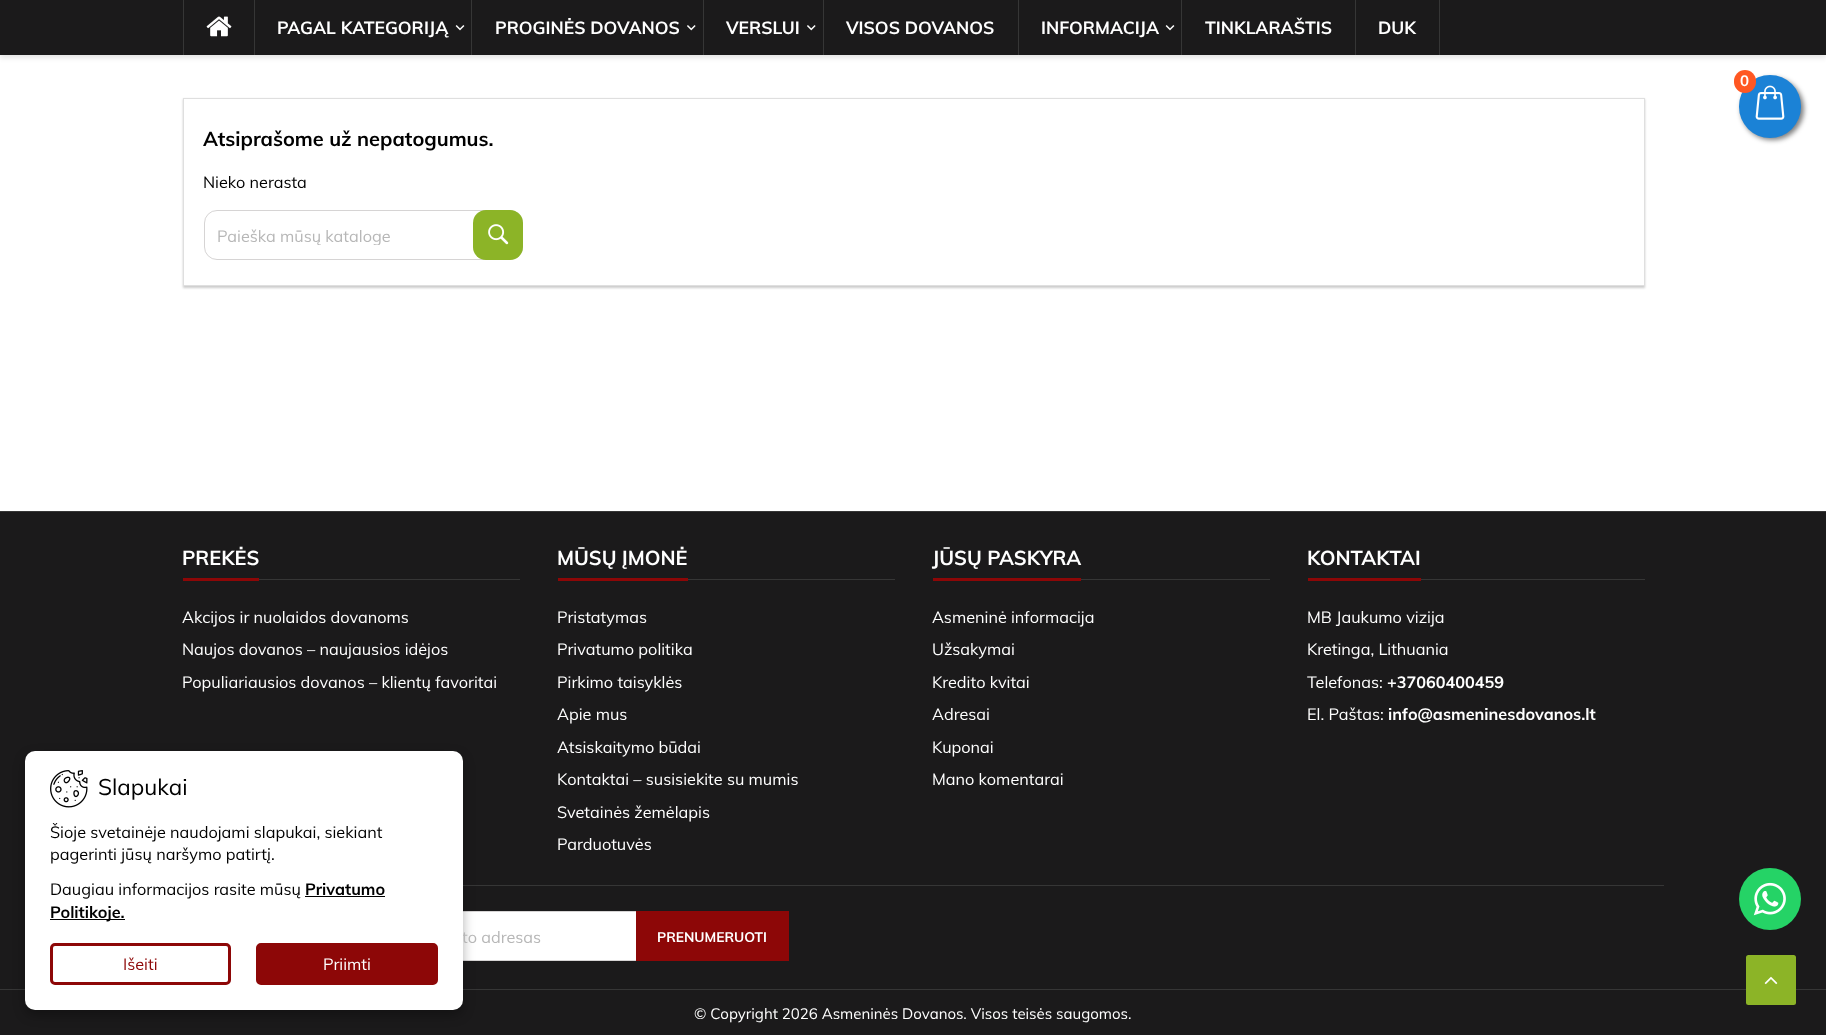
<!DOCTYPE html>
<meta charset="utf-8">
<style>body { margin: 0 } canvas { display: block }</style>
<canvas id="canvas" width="1826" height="1035"></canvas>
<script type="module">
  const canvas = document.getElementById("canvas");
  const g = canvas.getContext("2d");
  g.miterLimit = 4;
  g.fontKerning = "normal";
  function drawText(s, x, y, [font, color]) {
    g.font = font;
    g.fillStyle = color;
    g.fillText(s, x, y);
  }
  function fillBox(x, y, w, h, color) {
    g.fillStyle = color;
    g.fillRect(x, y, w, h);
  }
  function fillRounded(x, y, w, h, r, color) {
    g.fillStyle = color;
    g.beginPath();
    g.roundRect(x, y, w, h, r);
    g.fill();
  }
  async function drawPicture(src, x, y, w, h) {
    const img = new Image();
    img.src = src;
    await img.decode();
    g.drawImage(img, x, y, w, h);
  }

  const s1 = ["bold 17.5px Muli", "#FFFFFF"];
  const s2 = ["bold 15px Muli", "#FFFFFF"];
  const s3 = ["bold 20px Muli", "#000000"];
  const s4 = ["16.25px Muli", "#000000"];
  const s5 = ["16.25px Muli", "#B7B7B7"];
  const s6 = ["bold 20px Muli", "#FFFFFF"];
  const s7 = ["16.25px Muli", "#FFFFFF"];
  const s8 = ["bold 16.25px Muli", "#FFFFFF"];
  const s9 = ["bold 13.75px Muli", "#FFFFFF"];
  const s10 = ["22.5px Muli", "#000000"];
  const s11 = ["bold 16.25px Muli", "#000000"];
  const s12 = ["16.25px Muli", "#8D0707"];
  const s13 = ["15px Muli", "#FFFFFF"];

  fillBox(0, 0, 1826, 1035, "#FFFFFF");
  g.fillStyle = "rgba(0, 0, 0, 0.1)";
  g.filter = "blur(2.5px)";
  g.beginPath();
  g.rect(0, 3, 1826, 55);
  g.fill();
  g.filter = "none";
  fillBox(0, 0, 1826, 55, "#1B1A1B");
  fillBox(183, 0, 1, 55, "#363636");
  await drawPicture("pic1.png", 206, 16, 26, 21);
  fillBox(254, 0, 1, 55, "#363636");
  drawText("PAGAL KATEGORIJĄ", 277, 34, s1);
  await drawPicture("pic2.png", 455, 25, 10, 6);
  fillBox(471, 0, 1, 55, "#363636");
  drawText("PROGINĖS DOVANOS", 495, 34, s1);
  await drawPicture("pic3.png", 687, 25, 9, 6);
  fillBox(703, 0, 1, 55, "#363636");
  drawText("VERSLUI", 726, 34, s1);
  await drawPicture("pic3.png", 807, 25, 9, 6);
  fillBox(823, 0, 1, 55, "#363636");
  drawText("VISOS DOVANOS", 846, 34, s1);
  fillBox(1018, 0, 1, 55, "#363636");
  drawText("INFORMACIJA", 1041, 34, s1);
  await drawPicture("pic2.png", 1165, 25, 10, 6);
  fillBox(1181, 0, 1, 55, "#363636");
  drawText("TINKLARAŠTIS", 1205, 34, s1);
  fillBox(1439, 0, 1, 55, "#363636");
  fillBox(1355, 0, 1, 55, "#363636");
  drawText("DUK", 1378, 34, s1);
  g.fillStyle = "rgba(0, 0, 0, 0.5)";
  g.filter = "blur(2.5px)";
  g.beginPath();
  g.roundRect(1741, 78, 63, 62, 31);
  g.fill();
  g.filter = "none";
  fillRounded(1739, 75, 62, 63, 31, "#1B82D6");
  await drawPicture("pic4.png", 1755, 85, 30, 35);
  fillRounded(1734, 70, 22, 23, 11, "#FF5722");
  drawText("0", 1740, 86, s2);
  g.save();
  g.beginPath();
  g.moveTo(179, 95);
  g.lineTo(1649, 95);
  g.lineTo(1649, 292);
  g.lineTo(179, 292);
  g.closePath();
  g.moveTo(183, 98);
  g.lineTo(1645, 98);
  g.lineTo(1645, 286);
  g.lineTo(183, 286);
  g.closePath();
  g.clip("evenodd");
  g.fillStyle = "rgba(0, 0, 0, 0.2)";
  g.filter = "blur(1px)";
  g.beginPath();
  g.rect(183, 99, 1462, 189);
  g.fill();
  g.filter = "none";
  g.restore();
  g.strokeStyle = "#DFDFDF";
  g.strokeRect(183.5, 98.5, 1461, 187);
  drawText("Atsiprašome už nepatogumus.", 203, 146, s3);
  drawText("Nieko nerasta", 203, 188, s4);
  g.beginPath();
  g.roundRect(204.5, 210.5, 318, 49, 12.5);
  g.strokeStyle = "#D6D4D4";
  g.stroke();
  g.save();
  g.beginPath();
  g.rect(218, 225, 291, 20);
  g.clip();
  drawText("Paieška mūsų kataloge", 217, 242, s5);
  g.restore();
  fillRounded(473, 210, 50, 50, 13, "#8CB427");
  await drawPicture("pic5.png", 488, 224, 21, 21);
  fillBox(0, 512, 1826, 523, "#1B1A1B");
  fillBox(0, 511, 1826, 1, "#363636");
  fillBox(259, 579, 261, 1, "#363636");
  fillBox(183, 578, 76, 3, "#8D0707");
  drawText("PREKĖS", 182, 565, s6);
  drawText("Akcijos ir nuolaidos dovanoms", 182, 623, s7);
  drawText("Naujos dovanos – naujausios idėjos", 182, 655, s7);
  drawText("Populiariausios dovanos – klientų favoritai", 182, 688, s7);
  fillBox(688, 579, 207, 1, "#363636");
  fillBox(558, 578, 130, 3, "#8D0707");
  drawText("MŪSŲ ĮMONĖ", 557, 565, s6);
  drawText("Pristatymas", 557, 623, s7);
  drawText("Privatumo politika", 557, 655, s7);
  drawText("Pirkimo taisyklės", 557, 688, s7);
  drawText("Apie mus", 557, 720, s7);
  drawText("Atsiskaitymo būdai", 557, 753, s7);
  drawText("Kontaktai – susisiekite su mumis", 557, 785, s7);
  drawText("Svetainės žemėlapis", 557, 818, s7);
  drawText("Parduotuvės", 557, 850, s7);
  fillBox(1081, 579, 189, 1, "#363636");
  fillBox(933, 578, 148, 3, "#8D0707");
  drawText("JŪSŲ PASKYRA", 932, 565, s6);
  drawText("Asmeninė informacija", 932, 623, s7);
  drawText("Užsakymai", 932, 655, s7);
  drawText("Kredito kvitai", 932, 688, s7);
  drawText("Adresai", 932, 720, s7);
  drawText("Kuponai", 932, 753, s7);
  drawText("Mano komentarai", 932, 785, s7);
  fillBox(1421, 579, 224, 1, "#363636");
  fillBox(1308, 578, 113, 3, "#8D0707");
  drawText("KONTAKTAI", 1307, 565, s6);
  drawText("MB Jaukumo vizija", 1307, 623, s7);
  drawText("Kretinga, Lithuania", 1307, 655, s7);
  drawText("Telefonas:", 1307, 688, s7);
  drawText("+37060400459", 1387, 688, s8);
  drawText("El. Paštas:", 1307, 720, s7);
  drawText("info@asmeninesdovanos.lt", 1388, 720, s8);
  fillBox(463, 885, 1201, 1, "#363636");
  fillBox(463, 912, 173, 48, "#FFFFFF");
  fillBox(636, 911, 153, 50, "#8D0707");
  drawText("PRENUMERUOTI", 657, 942, s9);
  g.save();
  g.beginPath();
  g.rect(364, 911, 272, 50);
  g.clip();
  g.strokeRect(364.5, 911.5, 318, 49);
  g.restore();
  fillBox(0, 989, 1826, 1, "#363636");
  g.fillStyle = "rgba(0, 0, 0, 0.3)";
  g.filter = "blur(6px)";
  g.beginPath();
  g.roundRect(25, 756, 438, 259, 10);
  g.fill();
  g.filter = "none";
  drawText("to adresas", 462, 943, s5);
  fillRounded(25, 751, 438, 259, 10, "#FFFFFF");
  await drawPicture("pic6.png", 50, 770, 38, 38);
  drawText("Slapukai", 98, 795, s10);
  drawText("Šioje svetainėje naudojami slapukai, siekiant", 50, 838, s4);
  drawText("pagerinti jūsų naršymo patirtį.", 50, 860, s4);
  drawText("Daugiau informacijos rasite mūsų", 50, 895, s4);
  drawText("Privatumo", 305, 895, s11);
  fillBox(305, 896, 80, 1, "#000000");
  fillBox(50, 919, 75, 1, "#000000");
  drawText("Politikoje.", 50, 918, s11);
  g.beginPath();
  g.roundRect(51.5, 944.5, 178, 39, 3.5);
  g.strokeStyle = "#8D0707";
  g.lineWidth = 3;
  g.stroke();
  drawText("Išeiti", 123, 970, s12);
  g.beginPath();
  g.roundRect(257.5, 944.5, 179, 39, 3.5);
  g.fill();
  g.stroke();
  drawText("Priimti", 323, 970, s7);
  g.fillStyle = "#25D366";
  g.beginPath();
  g.arc(1770, 899, 31, 0, Math.PI * 2);
  g.fill();
  await drawPicture("pic7.png", 1753, 882, 33, 34);
  fillRounded(1746, 955, 50, 50, 2.5, "#8CB427");
  await drawPicture("pic8.png", 1764, 976, 14, 9);
  drawText("© Copyright 2026 Asmeninės Dovanos. Visos teisės saugomos.", 694, 1019, s13);
</script>
